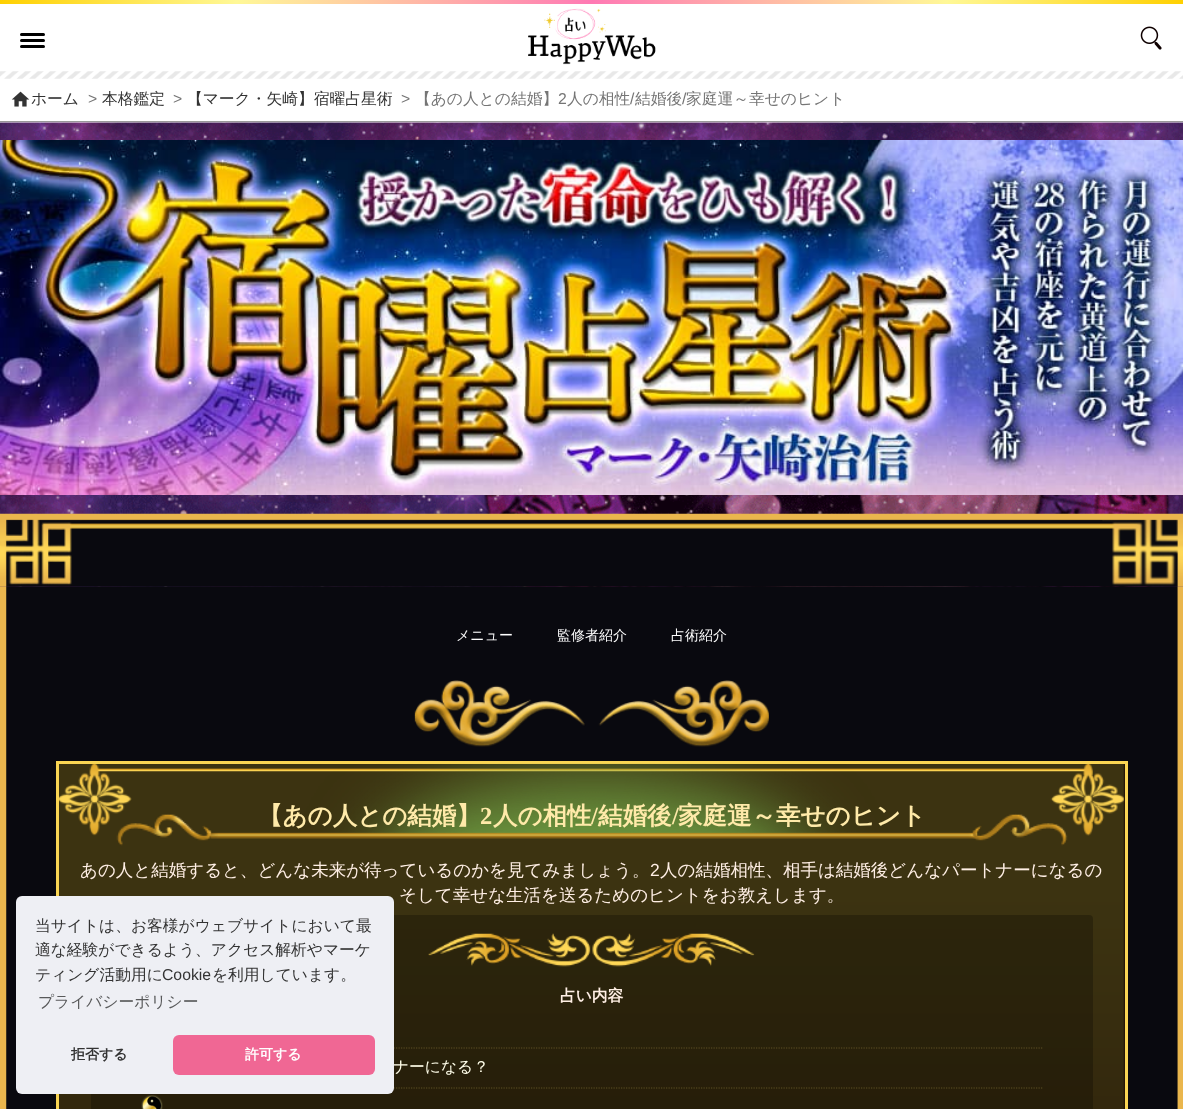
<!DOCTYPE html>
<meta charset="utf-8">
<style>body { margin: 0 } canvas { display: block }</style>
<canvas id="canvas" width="1183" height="1109"></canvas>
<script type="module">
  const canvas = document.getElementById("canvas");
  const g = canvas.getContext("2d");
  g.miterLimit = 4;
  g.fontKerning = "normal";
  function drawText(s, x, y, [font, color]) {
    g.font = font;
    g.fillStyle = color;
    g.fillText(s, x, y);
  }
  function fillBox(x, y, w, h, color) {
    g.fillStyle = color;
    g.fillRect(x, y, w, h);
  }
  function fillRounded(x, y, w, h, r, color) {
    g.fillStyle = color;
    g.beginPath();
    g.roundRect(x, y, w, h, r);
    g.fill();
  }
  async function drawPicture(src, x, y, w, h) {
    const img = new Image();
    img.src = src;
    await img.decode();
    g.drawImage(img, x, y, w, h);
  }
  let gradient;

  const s1 = ["500 15.75px WenQuanYi Zen Hei", "#333333"];
  const s2 = ["15.75px Liberation Sans", "#757575"];
  const s3 = ["500 15.75px WenQuanYi Zen Hei", "#757575"];
  const s4 = ["500 14px WenQuanYi Zen Hei", "#FFFFFF"];
  const s5 = ["bold 24.5px WenQuanYi Zen Hei", "#FFEAA9"];
  const s6 = ["bold 24.5px Liberation Serif", "#FFEAA9"];
  const s7 = ["500 17.5px WenQuanYi Zen Hei", "#FFEFE5"];
  const s8 = ["17.5px Liberation Sans", "#FFEFE5"];
  const s9 = ["bold 15.75px WenQuanYi Zen Hei", "#FFEFE5"];
  const s10 = ["500 15.75px WenQuanYi Zen Hei", "#FFFEEA"];
  const s11 = ["15.75px Liberation Sans", "#333333"];
  const s12 = ["500 15.75px WenQuanYi Zen Hei", "#58595A"];
  const s13 = ["bold 14px WenQuanYi Zen Hei", "#333333"];
  const s14 = ["bold 14px WenQuanYi Zen Hei", "#FFFFFF"];

  fillBox(0, 0, 1183, 1109, "#FFFFFF");
  fillRounded(20, 33, 25, 3, 1.5, "#000000");
  fillRounded(20, 39, 25, 3, 1.5, "#000000");
  fillRounded(20, 45, 25, 3, 1.5, "#000000");
  gradient = g.createLinearGradient(0, 1.9, 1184, 1.9);
  gradient.addColorStop(0, "#FFD000");
  gradient.addColorStop(0.2, "#FFF897");
  gradient.addColorStop(0.5, "#FF79B4");
  gradient.addColorStop(0.8, "#FFF897");
  gradient.addColorStop(1, "#FFD000");
  g.fillStyle = gradient;
  g.fillRect(0, 0, 1183, 4);
  await drawPicture("pic1.png", 0, 71, 1183, 8);
  await drawPicture("pic2.png", 528, 8, 128, 57);
  await drawPicture("pic3.png", 1140, 26, 22, 24);
  fillBox(0, 121, 1183, 1, "#999999");
  await drawPicture("pic4.png", 11, 91, 19, 16);
  drawText("ホーム", 31, 104, s1);
  drawText(">", 88, 104, s2);
  drawText("本格鑑定", 102, 104, s1);
  drawText(">", 173, 104, s2);
  drawText("【マーク・矢崎】宿曜占星術", 187, 104, s1);
  drawText(">", 401, 104, s2);
  drawText("【あの人との結婚】", 415, 104, s3);
  drawText("2", 558, 104, s2);
  drawText("人の相性", 567, 104, s3);
  drawText("/", 630, 104, s2);
  drawText("結婚後", 635, 104, s3);
  drawText("/", 682, 104, s2);
  drawText("家庭運～幸せのヒント", 686, 104, s3);
  await drawPicture("pic5.png", 0, 122, 1183, 465);
  await drawPicture("pic6.png", 0, 140, 1183, 355);
  await drawPicture("pic8.png", 0, 586, 1183, 523);
  await drawPicture("pic7.png", 0, 513, 1183, 74);
  drawText("メニュー", 456, 640, s4);
  drawText("監修者紹介", 557, 640, s4);
  drawText("占術紹介", 671, 640, s4);
  await drawPicture("pic9.png", 414, 680, 355, 67);
  fillBox(1123, 764, 2, 345, "#261606");
  await drawPicture("pic10.png", 59, 764, 1065, 345);
  g.strokeStyle = "#FAD553";
  g.lineWidth = 3;
  g.strokeRect(57.5, 762.5, 1069, 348);
  await drawPicture("pic11.png", 116, 763, 952, 83);
  drawText("【あの人との結婚】", 258, 824, s5);
  drawText("2", 480, 824, s6);
  drawText("人の相性", 493, 824, s5);
  drawText("/", 591, 824, s6);
  drawText("結婚後", 598, 824, s5);
  drawText("/", 672, 824, s6);
  drawText("家庭運～幸せのヒント", 678, 824, s5);
  drawText("あの人と結婚すると、どんな未来が待っているのかを見てみましょう。", 80, 876, s7);
  drawText("2", 650, 876, s8);
  drawText("人の結婚相性、相手は結婚後どんなパートナーになるの", 660, 876, s7);
  drawText("そして幸せな生活を送るためのヒントをお教えします。", 399, 901, s7);
  fillRounded(91, 915, 1002, 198, 4, "rgba(0, 0, 0, 0.25)");
  await drawPicture("pic12.png", 428, 933, 327, 34);
  drawText("占い内容", 560, 1001, s9);
  g.beginPath();
  g.moveTo(141, 1048);
  g.lineTo(1042.5, 1048);
  g.strokeStyle = "#5D5125";
  g.lineWidth = 1.2;
  g.setLineDash([1.25, 1.25]);
  g.stroke();
  g.beginPath();
  g.moveTo(141, 1088);
  g.lineTo(1042.5, 1088);
  g.stroke();
  drawText("ナーになる？", 393, 1072, s10);
  await drawPicture("pic13.png", 141, 1095, 22, 14);
  fillRounded(16, 896, 378, 198, 6, "#EEEFF4");
  drawText("当サイトは、お客様がウェブサイトにおいて最", 35, 931, s1);
  drawText("適な経験ができるよう、アクセス解析やマーケ", 35, 955, s1);
  drawText("ティング活動用に", 35, 980, s1);
  drawText("Cookie", 162, 980, s11);
  drawText("を利用しています。", 212, 980, s1);
  drawText("プライバシーポリシー", 38, 1007, s12);
  drawText("拒否する", 71, 1059, s13);
  fillRounded(173, 1035, 202, 40, 6, "#F06794");
  drawText("許可する", 245, 1059, s14);
</script>
